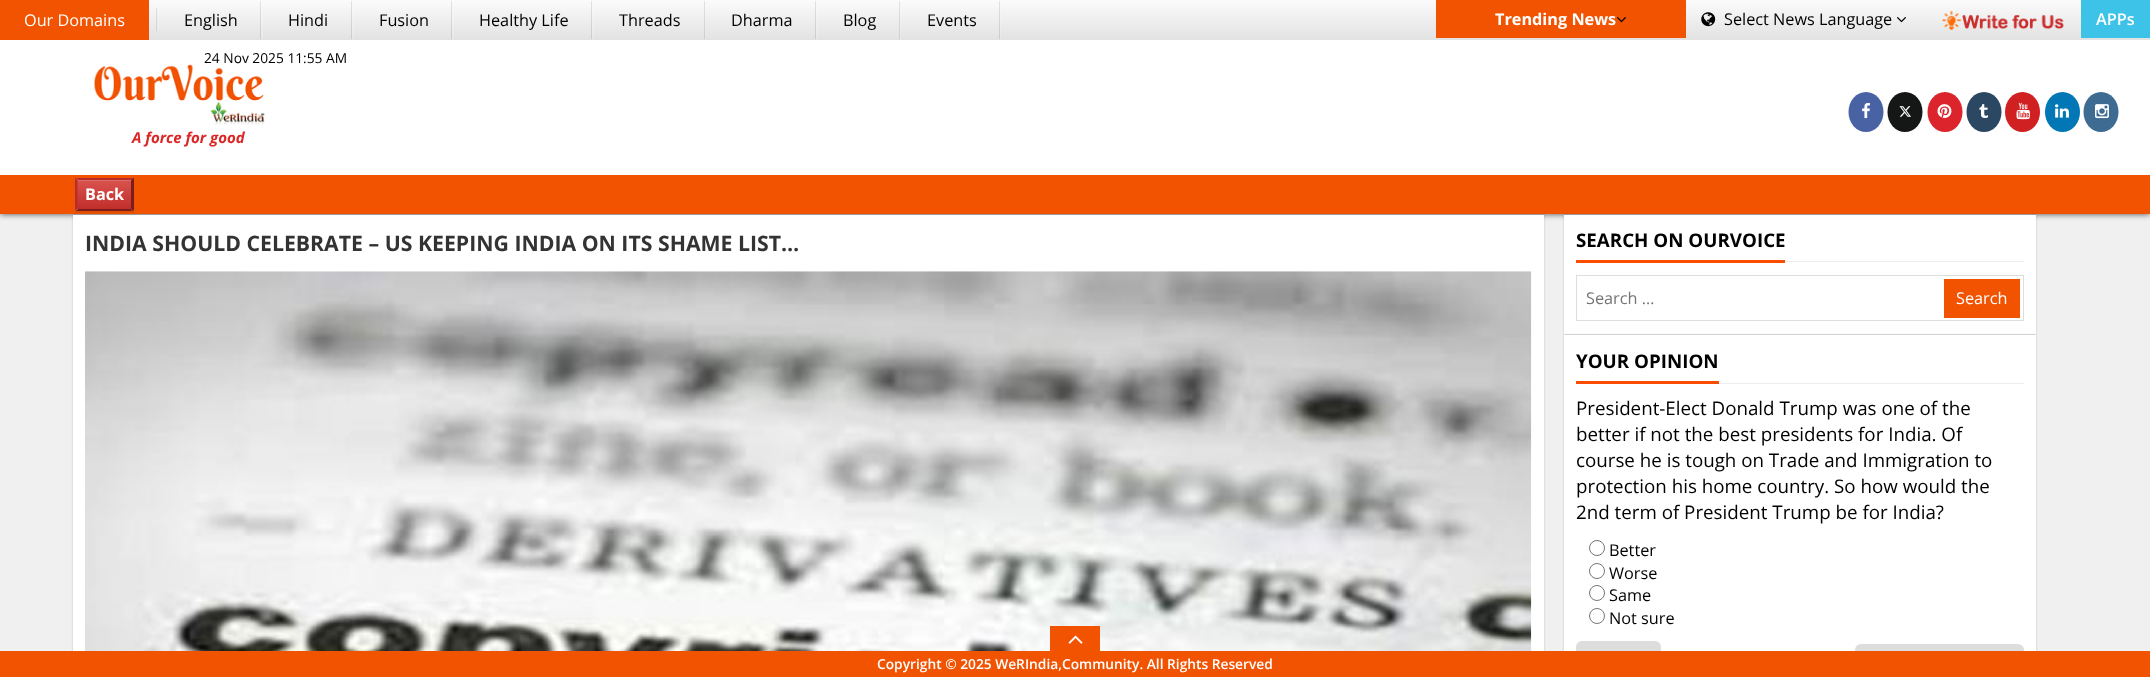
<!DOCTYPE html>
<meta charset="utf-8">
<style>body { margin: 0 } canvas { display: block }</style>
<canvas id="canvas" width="2150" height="677"></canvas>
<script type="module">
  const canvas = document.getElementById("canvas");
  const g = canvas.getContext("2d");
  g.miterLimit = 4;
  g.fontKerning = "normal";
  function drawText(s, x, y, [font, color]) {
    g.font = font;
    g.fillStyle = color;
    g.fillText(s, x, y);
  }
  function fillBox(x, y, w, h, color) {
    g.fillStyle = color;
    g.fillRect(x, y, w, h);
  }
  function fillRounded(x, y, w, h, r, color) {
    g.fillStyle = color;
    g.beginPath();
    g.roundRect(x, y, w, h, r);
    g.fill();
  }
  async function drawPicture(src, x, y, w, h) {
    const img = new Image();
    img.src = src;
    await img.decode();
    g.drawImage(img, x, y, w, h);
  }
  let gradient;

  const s1 = ["16.25px Open Sans", "#FFFFFF"];
  const s2 = ["16.25px Open Sans", "#000000"];
  const s3 = ["bold 16.25px Open Sans", "#FFFFFF"];
  const s4 = ["600 16.25px Open Sans", "#FFFFFF"];
  const s5 = ["13.75px Open Sans", "#000000"];
  const s6 = ["italic bold 15px Open Sans", "#DB2726"];
  const s7 = ["bold 21.25px Open Sans", "#333333"];
  const s8 = ["bold 18.75px Open Sans", "#000000"];
  const s9 = ["16.25px Open Sans", "#757575"];
  const s10 = ["18.75px Open Sans", "#000000"];
  const s11 = ["600 13.75px Open Sans", "#FFFFFF"];

  fillBox(0, 0, 2150, 677, "#F0F0F0");
  g.fillStyle = "rgba(0, 0, 0, 0.7)";
  g.filter = "blur(3px)";
  g.beginPath();
  g.rect(0, 0, 2150, 214);
  g.fill();
  g.filter = "none";
  fillBox(0, 40, 2150, 135, "#FFFFFF");
  gradient = g.createLinearGradient(1075, 0, 1075, 40);
  gradient.addColorStop(0, "#FBFBFB");
  gradient.addColorStop(1, "#E2E2E2");
  g.fillStyle = gradient;
  g.fillRect(149, 0, 2001, 40);
  gradient = g.createLinearGradient(1075, 0, 1075, 40);
  gradient.addColorStop(0, "#E2E2E2");
  gradient.addColorStop(1, "#CBCBCB");
  g.fillStyle = gradient;
  g.fillRect(999, 1, 1, 38);
  g.fillRect(899, 1, 1, 38);
  g.fillRect(815, 1, 1, 38);
  g.fillRect(704, 1, 1, 38);
  g.fillRect(591, 1, 1, 38);
  g.fillRect(451, 1, 1, 38);
  g.fillRect(351, 1, 1, 38);
  g.fillRect(260, 1, 1, 38);
  g.fillRect(156, 8, 1, 23);
  gradient = g.createLinearGradient(1075, 0, 1075, 40);
  gradient.addColorStop(0, "#FCFCFC");
  gradient.addColorStop(1, "#E8E8E8");
  g.fillStyle = gradient;
  g.fillRect(158, 8, 1, 23);
  fillBox(0, 0, 149, 40, "#F25300");
  drawText("Our Domains", 24, 26, s1);
  g.fillStyle = "rgba(255, 255, 255, 0.2)";
  g.beginPath();
  g.moveTo(163, 1);
  g.lineTo(261, 1);
  g.lineTo(261, 39);
  g.lineTo(163, 39);
  g.lineTo(263, 39);
  g.lineTo(263, 1);
  g.closePath();
  g.fill();
  drawText("English", 184, 26, s2);
  g.fillStyle = "rgba(255, 255, 255, 0.2)";
  g.beginPath();
  g.moveTo(268, 1);
  g.lineTo(352, 1);
  g.lineTo(352, 39);
  g.lineTo(268, 39);
  g.lineTo(354, 39);
  g.lineTo(354, 1);
  g.closePath();
  g.fill();
  drawText("Hindi", 288, 26, s2);
  g.fillStyle = "rgba(255, 255, 255, 0.2)";
  g.beginPath();
  g.moveTo(358, 1);
  g.lineTo(452, 1);
  g.lineTo(452, 39);
  g.lineTo(358, 39);
  g.lineTo(454, 39);
  g.lineTo(454, 1);
  g.closePath();
  g.fill();
  drawText("Fusion", 379, 26, s2);
  g.fillStyle = "rgba(255, 255, 255, 0.2)";
  g.beginPath();
  g.moveTo(458, 1);
  g.lineTo(592, 1);
  g.lineTo(592, 39);
  g.lineTo(458, 39);
  g.lineTo(594, 39);
  g.lineTo(594, 1);
  g.closePath();
  g.fill();
  drawText("Healthy Life", 479, 26, s2);
  g.fillStyle = "rgba(255, 255, 255, 0.2)";
  g.beginPath();
  g.moveTo(598, 1);
  g.lineTo(705, 1);
  g.lineTo(705, 39);
  g.lineTo(598, 39);
  g.lineTo(706, 39);
  g.lineTo(706, 1);
  g.closePath();
  g.fill();
  drawText("Threads", 619, 26, s2);
  g.fillStyle = "rgba(255, 255, 255, 0.2)";
  g.beginPath();
  g.moveTo(710, 1);
  g.lineTo(816, 1);
  g.lineTo(816, 39);
  g.lineTo(710, 39);
  g.lineTo(818, 39);
  g.lineTo(818, 1);
  g.closePath();
  g.fill();
  drawText("Dharma", 731, 26, s2);
  g.fillStyle = "rgba(255, 255, 255, 0.2)";
  g.beginPath();
  g.moveTo(821, 1);
  g.lineTo(900, 1);
  g.lineTo(900, 39);
  g.lineTo(821, 39);
  g.lineTo(901, 39);
  g.lineTo(901, 1);
  g.closePath();
  g.fill();
  drawText("Blog", 843, 26, s2);
  g.fillStyle = "rgba(255, 255, 255, 0.2)";
  g.beginPath();
  g.moveTo(905, 1);
  g.lineTo(1000, 1);
  g.lineTo(1000, 39);
  g.lineTo(905, 39);
  g.lineTo(1001, 39);
  g.lineTo(1001, 1);
  g.closePath();
  g.fill();
  drawText("Events", 927, 26, s2);
  fillBox(1436, 0, 250, 38, "#F25300");
  drawText("Trending News", 1495, 25, s3);
  await drawPicture("pic1.png", 1617, 17, 9, 6);
  await drawPicture("pic2.png", 1701, 12, 15, 15);
  drawText("Select News Language", 1724, 25, s2);
  await drawPicture("pic3.png", 1897, 17, 9, 6);
  await drawPicture("pic4.png", 1942, 11, 122, 19);
  fillBox(2081, 0, 69, 38, "#3DC2E8");
  drawText("APPs", 2096, 25, s4);
  drawText("24 Nov 2025 11:55 AM", 204, 63, s5);
  await drawPicture("pic5.png", 94, 64, 171, 61);
  drawText("A force for good", 132, 143, s6);
  g.fillStyle = "#4862A3";
  g.beginPath();
  g.ellipse(1866, 112, 17.5, 20, 0, 0, Math.PI * 2);
  g.fill();
  await drawPicture("pic6.png", 1862, 103, 8, 16);
  g.fillStyle = "#151616";
  g.beginPath();
  g.ellipse(1905, 112, 17.5, 20, 0, 0, Math.PI * 2);
  g.fill();
  await drawPicture("pic7.png", 1899, 106, 12, 11);
  g.fillStyle = "#DB242C";
  g.beginPath();
  g.ellipse(1945, 112, 17.5, 20, 0, 0, Math.PI * 2);
  g.fill();
  await drawPicture("pic8.png", 1937, 104, 15, 14);
  g.fillStyle = "#2C4762";
  g.beginPath();
  g.ellipse(1984, 112, 17.5, 20, 0, 0, Math.PI * 2);
  g.fill();
  await drawPicture("pic9.png", 1979, 104, 10, 14);
  g.fillStyle = "#D02022";
  g.beginPath();
  g.ellipse(2022.5, 112, 17.5, 20, 0, 0, Math.PI * 2);
  g.fill();
  await drawPicture("pic10.png", 2016, 102, 14, 18);
  g.fillStyle = "#0177B5";
  g.beginPath();
  g.ellipse(2062.5, 112, 17.5, 20, 0, 0, Math.PI * 2);
  g.fill();
  await drawPicture("pic11.png", 2055, 104, 14, 14);
  g.fillStyle = "#3D6B92";
  g.beginPath();
  g.ellipse(2101, 112, 17.5, 20, 0, 0, Math.PI * 2);
  g.fill();
  await drawPicture("pic12.png", 2095, 104, 14, 15);
  fillBox(0, 175, 2150, 39, "#F25300");
  g.fillStyle = "rgba(0, 0, 0, 0.07)";
  g.filter = "blur(0.5px)";
  g.beginPath();
  g.rect(75, 179, 59, 34);
  g.fill();
  g.filter = "none";
  fillBox(75, 178, 59, 33, "#EFEFEF");
  gradient = g.createLinearGradient(104, 180, 104, 209);
  gradient.addColorStop(0, "#D9534F");
  gradient.addColorStop(1, "#C12E2A");
  g.fillStyle = gradient;
  g.fillRect(77, 180, 54, 29);
  fillBox(78, 180, 53, 1, "#DF6C69");
  g.fillStyle = "#B92C28";
  g.beginPath();
  g.moveTo(75, 178);
  g.lineTo(134, 178);
  g.lineTo(131, 180);
  g.lineTo(78, 180);
  g.closePath();
  g.fill();
  g.fillStyle = "#7B1D1B";
  g.beginPath();
  g.moveTo(134, 177.5);
  g.lineTo(134, 211);
  g.lineTo(131, 209);
  g.lineTo(131, 180);
  g.closePath();
  g.fill();
  g.beginPath();
  g.moveTo(134, 211);
  g.lineTo(75, 211);
  g.lineTo(78, 209);
  g.lineTo(131, 209);
  g.closePath();
  g.fill();
  g.fillStyle = "#B92C28";
  g.beginPath();
  g.moveTo(75, 211);
  g.lineTo(75, 177.5);
  g.lineTo(77.5, 180);
  g.lineTo(77.5, 209);
  g.closePath();
  g.fill();
  drawText("Back", 85, 200, s3);
  g.fillStyle = "rgba(0, 0, 0, 0.2)";
  g.filter = "blur(1px)";
  g.beginPath();
  g.rect(73, 215, 1471, 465);
  g.fill();
  g.filter = "none";
  fillBox(73, 215, 1471, 436, "#FFFFFF");
  drawText("INDIA SHOULD CELEBRATE – US KEEPING INDIA ON ITS SHAME LIST…", 85, 251, s7);
  await drawPicture("pic13.png", 85, 271, 1447, 380);
  g.fillStyle = "rgba(0, 0, 0, 0.2)";
  g.filter = "blur(1px)";
  g.beginPath();
  g.rect(1564, 215, 472, 119);
  g.fill();
  g.filter = "none";
  fillBox(1564, 215, 472, 119, "#FFFFFF");
  fillBox(1785, 261, 239, 1, "#EDEDED");
  fillBox(1576, 260, 209, 3, "#FA4D01");
  drawText("SEARCH ON OURVOICE", 1576, 247, s8);
  g.strokeStyle = "#DDDDDD";
  g.strokeRect(1576.5, 275.5, 447, 45);
  drawText("Search …", 1586, 304, s9);
  fillBox(1944, 279, 76, 39, "#F25300");
  drawText("Search", 1956, 304, s1);
  g.fillStyle = "rgba(0, 0, 0, 0.2)";
  g.filter = "blur(1px)";
  g.beginPath();
  g.rect(1564, 335, 472, 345);
  g.fill();
  g.filter = "none";
  fillBox(1564, 335, 472, 316, "#FFFFFF");
  fillBox(1719, 383, 305, 1, "#EDEDED");
  fillBox(1576, 381, 143, 3, "#FA4D01");
  drawText("YOUR OPINION", 1576, 368, s8);
  drawText("President-Elect Donald Trump was one of the", 1576, 415, s10);
  drawText("better if not the best presidents for India. Of", 1576, 441, s10);
  drawText("course he is tough on Trade and Immigration to", 1576, 467, s10);
  drawText("protection his home country. So how would the", 1576, 493, s10);
  drawText("2nd term of President Trump be for India?", 1576, 519, s10);
  g.beginPath();
  g.arc(1597, 548, 7.5, 0, Math.PI * 2);
  g.strokeStyle = "#767676";
  g.stroke();
  drawText("Better", 1609, 556, s2);
  g.beginPath();
  g.arc(1597, 571, 7.5, 0, Math.PI * 2);
  g.stroke();
  drawText("Worse", 1609, 579, s2);
  g.beginPath();
  g.arc(1597, 593, 7.5, 0, Math.PI * 2);
  g.stroke();
  drawText("Same", 1609, 601, s2);
  g.beginPath();
  g.arc(1597, 616, 7.5, 0, Math.PI * 2);
  g.stroke();
  drawText("Not sure", 1609, 624, s2);
  fillRounded(1576, 641, 85, 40, 6, "#DDDDDD");
  fillRounded(1855, 644, 169, 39, 6, "#DDDDDD");
  fillBox(0, 651, 2150, 26, "#F25300");
  fillBox(1050, 626, 50, 25, "#F25300");
  await drawPicture("pic14.png", 1068, 635, 15, 9);
  drawText("Copyright © 2025 WeRIndia,Community. All Rights Reserved", 877, 669, s11);
</script>
